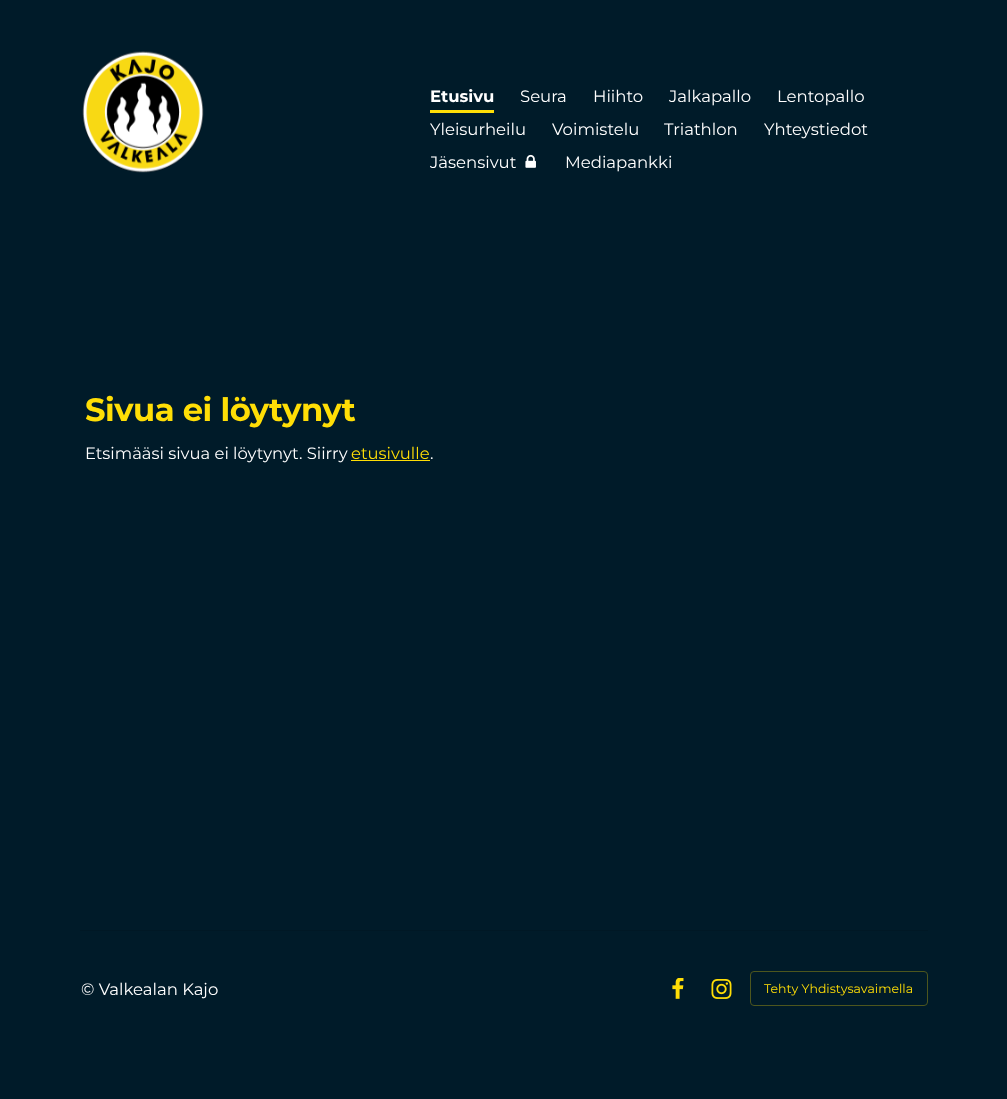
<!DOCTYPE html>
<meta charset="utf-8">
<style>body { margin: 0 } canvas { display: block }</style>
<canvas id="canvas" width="1007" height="1099"></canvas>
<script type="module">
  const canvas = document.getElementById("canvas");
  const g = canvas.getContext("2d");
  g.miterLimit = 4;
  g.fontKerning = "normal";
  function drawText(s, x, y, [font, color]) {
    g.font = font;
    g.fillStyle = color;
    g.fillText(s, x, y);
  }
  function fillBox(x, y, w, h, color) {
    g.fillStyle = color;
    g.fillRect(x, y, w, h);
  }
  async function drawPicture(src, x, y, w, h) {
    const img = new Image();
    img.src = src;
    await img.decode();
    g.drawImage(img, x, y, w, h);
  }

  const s1 = ["100 16.5px Montserrat", "#FFFFFF"];
  const s2 = ["100 16.5px 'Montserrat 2'", "#FFFFFF"];
  const s3 = ["100 32.25px Montserrat", "#FFDE06"];
  const s4 = ["100 16.4px 'Montserrat 2'", "#FFFFFF"];
  const s5 = ["100 16.4px 'Montserrat 2'", "#FFDE06"];
  const s6 = ["100 12.5px 'Montserrat 2'", "#FFDE06"];

  fillBox(0, 0, 1007, 1099, "#001B29");
  await drawPicture("pic1.png", 82, 51, 122, 122);
  drawText("Etusivu", 430, 102, s1);
  fillBox(430, 110, 64, 3, "#FFDE06");
  drawText("Seura", 520, 102, s2);
  drawText("Hiihto", 593, 102, s2);
  drawText("Jalkapallo", 669, 102, s2);
  drawText("Lentopallo", 777, 102, s2);
  drawText("Yleisurheilu", 430, 135, s2);
  drawText("Voimistelu", 552, 135, s2);
  drawText("Triathlon", 664, 135, s2);
  drawText("Yhteystiedot", 764, 135, s2);
  drawText("Jäsensivut", 430, 168, s2);
  await drawPicture("pic2.png", 525, 154, 11, 14);
  drawText("Mediapankki", 565, 168, s2);
  g.letterSpacing = "-0.5px";
  drawText("Sivua ei löytynyt", 85, 421, s3);
  g.letterSpacing = "0px";
  drawText("Etsimääsi sivua ei löytynyt. Siirry", 85, 459, s4);
  drawText("etusivulle", 351, 459, s5);
  fillBox(351, 460, 79, 1, "#FFDE06");
  drawText(".", 430, 459, s4);
  fillBox(80, 930, 848, 1, "#001825");
  drawText("© Valkealan Kajo", 81, 995, s2);
  await drawPicture("pic3.png", 672, 978, 12, 21);
  await drawPicture("pic4.png", 711, 979, 21, 20);
  g.beginPath();
  g.roundRect(750.5, 971.5, 177, 34, 3.5);
  g.strokeStyle = "#4D561E";
  g.stroke();
  drawText("Tehty Yhdistysavaimella", 764, 993, s6);
</script>
